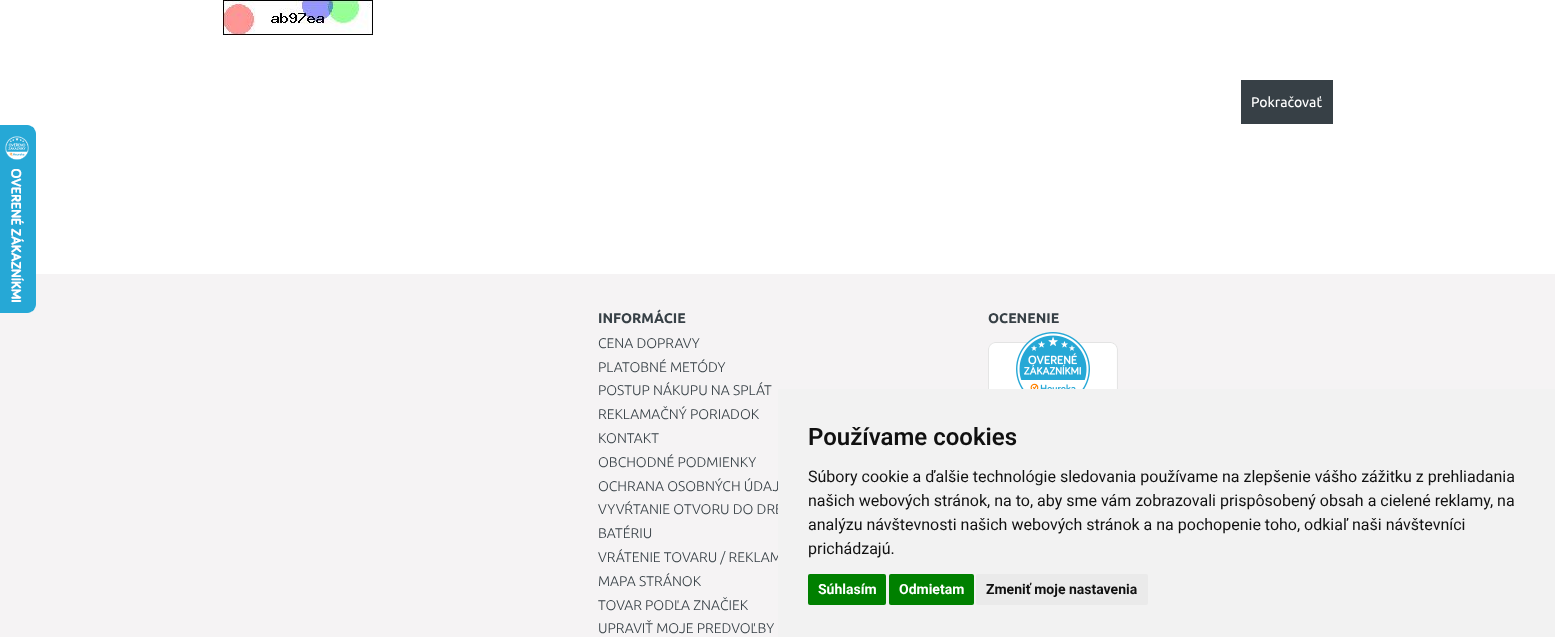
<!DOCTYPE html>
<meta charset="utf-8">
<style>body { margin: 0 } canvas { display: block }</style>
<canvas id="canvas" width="1555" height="637"></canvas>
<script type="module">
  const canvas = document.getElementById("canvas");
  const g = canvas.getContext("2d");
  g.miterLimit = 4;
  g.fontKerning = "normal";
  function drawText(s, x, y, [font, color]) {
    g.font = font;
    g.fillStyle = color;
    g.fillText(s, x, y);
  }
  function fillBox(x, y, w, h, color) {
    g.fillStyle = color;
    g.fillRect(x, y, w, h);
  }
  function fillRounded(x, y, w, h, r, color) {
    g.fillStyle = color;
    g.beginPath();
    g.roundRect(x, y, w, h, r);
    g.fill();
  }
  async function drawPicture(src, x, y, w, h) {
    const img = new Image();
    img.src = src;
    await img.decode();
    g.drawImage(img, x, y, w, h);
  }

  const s1 = ["14px Ubuntu", "#FFFFFF"];
  const s2 = ["bold 14px Ubuntu", "#374046"];
  const s3 = ["300 14px Ubuntu", "#374046"];
  const s4 = ["600 24px Roboto", "#111111"];
  const s5 = ["16px Roboto", "#111111"];
  const s6 = ["bold 14px Roboto", "#FFFFFF"];
  const s7 = ["bold 14px Roboto", "#111111"];

  fillBox(0, 0, 1555, 637, "#FFFFFF");
  fillBox(0, 274, 1555, 363, "#F5F3F4");
  await drawPicture("pic1.png", 0, 125, 36, 188);
  await drawPicture("pic2.png", 223, 0, 150, 35);
  fillBox(1241, 80, 92, 44, "#374046");
  drawText("Pokračovať", 1251, 107, s1);
  drawText("INFORMÁCIE", 598, 323, s2);
  drawText("CENA DOPRAVY", 598, 348, s3);
  drawText("PLATOBNÉ METÓDY", 598, 372, s3);
  drawText("POSTUP NÁKUPU NA SPLÁT", 598, 395, s3);
  drawText("REKLAMAČNÝ PORIADOK", 598, 419, s3);
  drawText("KONTAKT", 598, 443, s3);
  drawText("OBCHODNÉ PODMIENKY", 598, 467, s3);
  drawText("OCHRANA OSOBNÝCH ÚDAJ", 598, 491, s3);
  drawText("VYVŔTANIE OTVORU DO DRE", 598, 514, s3);
  drawText("BATÉRIU", 598, 538, s3);
  drawText("VRÁTENIE TOVARU / REKLAM", 598, 562, s3);
  drawText("MAPA STRÁNOK", 598, 586, s3);
  drawText("TOVAR PODĽA ZNAČIEK", 598, 610, s3);
  drawText("UPRAVIŤ MOJE PREDVOĽBY", 598, 633, s3);
  drawText("OCENENIE", 988, 323, s2);
  await drawPicture("pic3.png", 988, 332, 130, 57);
  fillBox(778, 389, 777, 248, "#F2F2F2");
  drawText("Používame cookies", 808, 445, s4);
  drawText("Súbory cookie a ďalšie technológie sledovania používame na zlepšenie vášho zážitku z prehliadania", 808, 482, s5);
  drawText("našich webových stránok, na to, aby sme vám zobrazovali prispôsobený obsah a cielené reklamy, na", 808, 506, s5);
  drawText("analýzu návštevnosti našich webových stránok a na pochopenie toho, odkiaľ naši návštevníci", 808, 530, s5);
  drawText("prichádzajú.", 808, 554, s5);
  fillRounded(808, 574, 78, 31, 2, "#008000");
  drawText("Súhlasím", 818, 594, s6);
  fillRounded(889, 574, 85, 31, 2, "#008000");
  drawText("Odmietam", 899, 594, s6);
  fillRounded(976, 574, 172, 31, 2, "#EAEAEA");
  drawText("Zmeniť moje nastavenia", 986, 594, s7);
</script>
